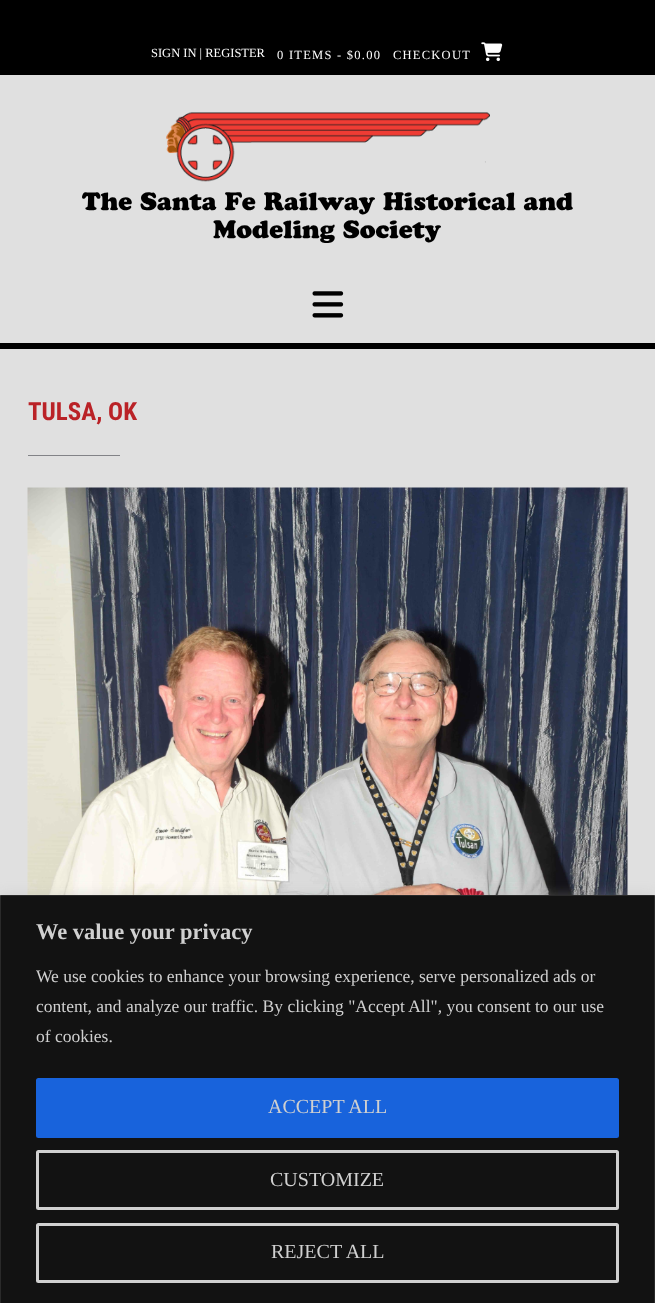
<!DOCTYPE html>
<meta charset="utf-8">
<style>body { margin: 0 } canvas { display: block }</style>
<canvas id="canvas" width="655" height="1303"></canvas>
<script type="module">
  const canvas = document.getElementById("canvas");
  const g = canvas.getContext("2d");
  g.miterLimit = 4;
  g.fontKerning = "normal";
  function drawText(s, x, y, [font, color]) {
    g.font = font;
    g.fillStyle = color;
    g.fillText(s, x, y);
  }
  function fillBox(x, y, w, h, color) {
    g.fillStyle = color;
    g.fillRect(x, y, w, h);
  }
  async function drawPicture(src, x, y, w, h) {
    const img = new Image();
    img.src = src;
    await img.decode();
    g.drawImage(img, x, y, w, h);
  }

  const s1 = ["12.5px Liberation Serif", "#FFFFFF"];
  const s2 = ["900 25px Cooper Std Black", "#000000"];
  const s3 = ["bold 25px Roboto Condensed", "#BA2227"];
  const s4 = ["bold 22.5px Liberation Serif", "#D0D0D0"];
  const s5 = ["17.5px Liberation Serif", "#D0D0D0"];
  const s6 = ["20px Liberation Serif", "#D0D0D0"];

  fillBox(0, 0, 655, 1303, "#E0E0E0");
  fillBox(0, 0, 655, 75, "#000000");
  drawText("SIGN IN | REGISTER", 151, 57, s1);
  g.letterSpacing = "1.25px";
  drawText("0 ITEMS - $0.00", 277, 59, s1);
  drawText("CHECKOUT", 393, 59, s1);
  await drawPicture("pic1.png", 481, 42, 22, 20);
  await drawPicture("pic2.png", 166, 112, 324, 70);
  g.letterSpacing = "0px";
  drawText("The Santa Fe Railway Historical and", 82, 210, s2);
  drawText("Modeling Society", 213, 238, s2);
  fillBox(0, 343, 655, 6, "#000000");
  await drawPicture("pic3.png", 312, 291, 32, 27);
  drawText("TULSA, OK", 28, 420, s3);
  fillBox(28, 455, 92, 1, "#828387");
  await drawPicture("pic4.png", 27, 487, 601, 408);
  g.fillStyle = "rgba(172, 171, 171, 0.3)";
  g.filter = "blur(6px)";
  g.beginPath();
  g.rect(0, 894, 655, 409);
  g.fill();
  g.filter = "none";
  g.fillStyle = "#121212";
  g.beginPath();
  g.rect(0.5, 895.5, 654, 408);
  g.fill();
  g.strokeStyle = "#2A2A2A";
  g.stroke();
  drawText("We value your privacy", 36, 939, s4);
  drawText("We use cookies to enhance your browsing experience, serve personalized ads or", 36, 982, s5);
  drawText("content, and analyze our traffic. By clicking \"Accept All\", you consent to our use", 36, 1012, s5);
  drawText("of cookies.", 36, 1042, s5);
  g.fillStyle = "#1863DC";
  g.beginPath();
  g.roundRect(37.5, 1079.5, 580, 57, 1);
  g.fill();
  g.strokeStyle = "#1863DC";
  g.lineWidth = 3;
  g.stroke();
  drawText("ACCEPT ALL", 268, 1113, s6);
  g.beginPath();
  g.roundRect(37.5, 1151.5, 580, 57, 1);
  g.strokeStyle = "#D0D0D0";
  g.stroke();
  drawText("CUSTOMIZE", 270, 1186, s6);
  g.beginPath();
  g.roundRect(37.5, 1224.5, 580, 57, 1);
  g.stroke();
  drawText("REJECT ALL", 271, 1258, s6);
</script>
